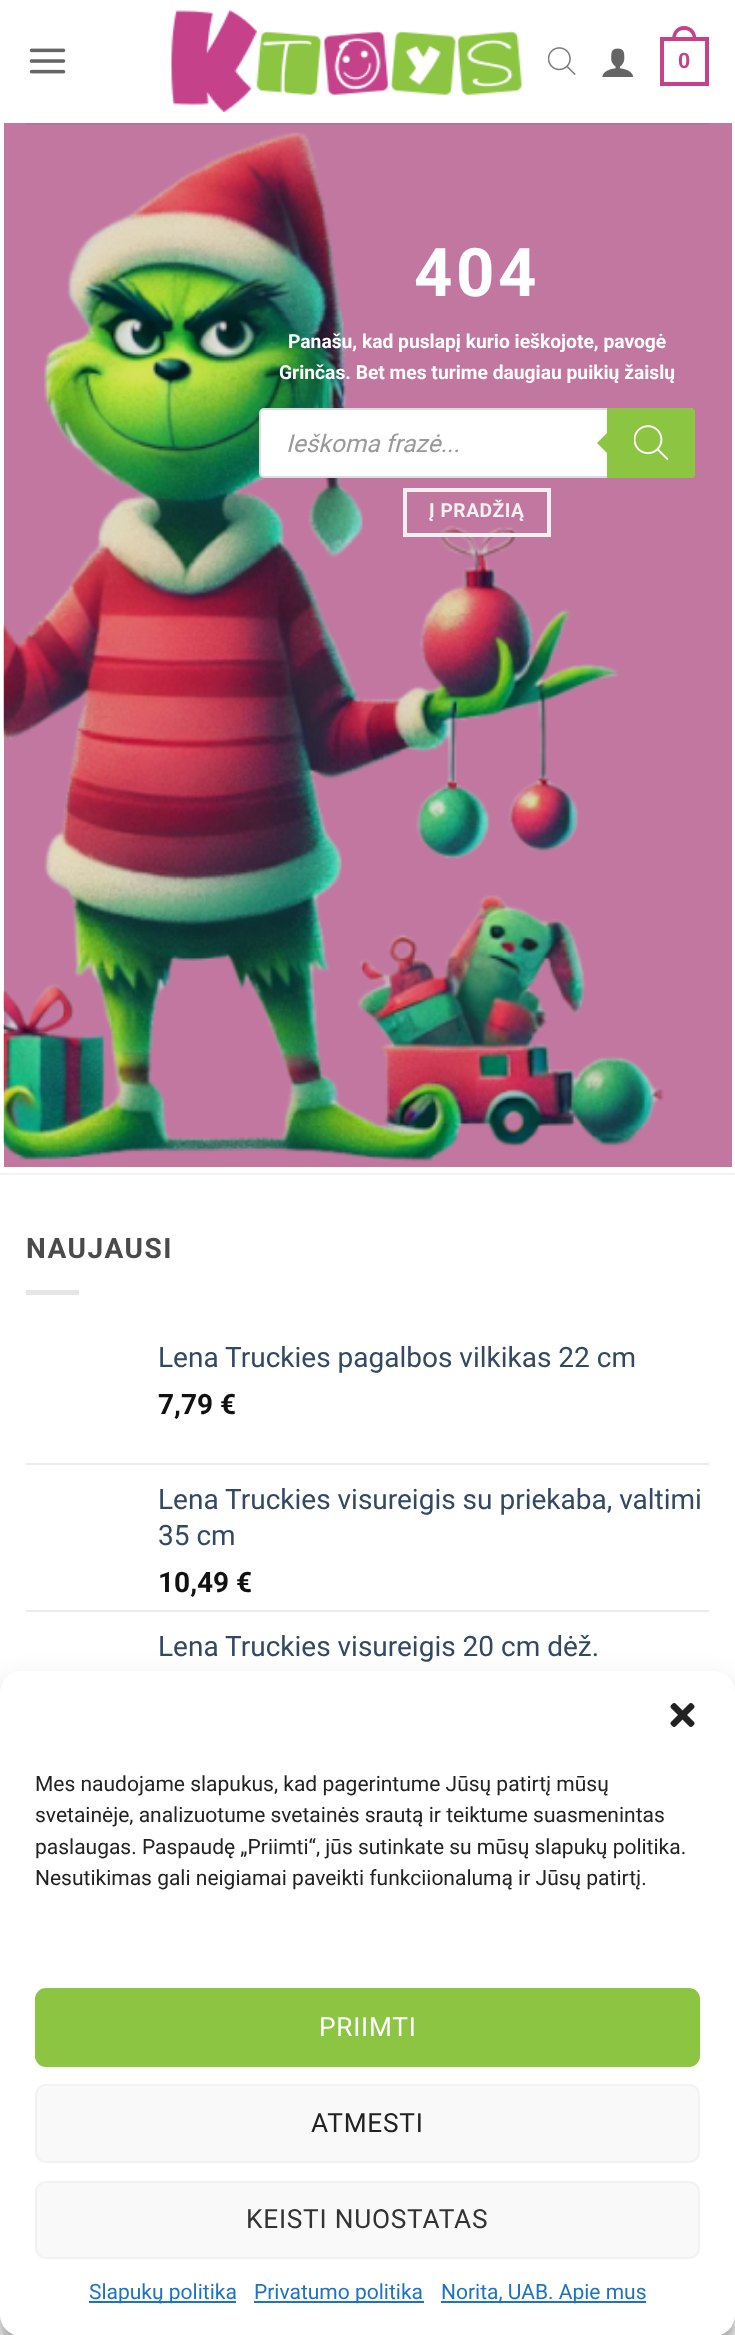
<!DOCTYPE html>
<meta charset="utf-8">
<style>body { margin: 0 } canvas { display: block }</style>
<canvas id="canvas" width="735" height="2335"></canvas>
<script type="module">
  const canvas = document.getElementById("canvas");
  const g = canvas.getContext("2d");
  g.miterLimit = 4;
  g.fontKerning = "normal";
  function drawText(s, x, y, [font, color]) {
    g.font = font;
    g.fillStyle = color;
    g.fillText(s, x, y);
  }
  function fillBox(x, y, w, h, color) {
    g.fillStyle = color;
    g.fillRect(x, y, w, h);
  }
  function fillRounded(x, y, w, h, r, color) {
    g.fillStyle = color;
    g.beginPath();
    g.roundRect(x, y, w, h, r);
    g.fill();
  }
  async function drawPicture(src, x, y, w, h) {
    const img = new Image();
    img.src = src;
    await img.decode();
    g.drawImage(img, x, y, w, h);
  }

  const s1 = ["bold 22px Liberation Sans", "#C5428B"];
  const s2 = ["bold 67px Roboto", "#FFFFFF"];
  const s3 = ["bold 19.25px Roboto", "#FFFFFF"];
  const s4 = ["italic 24.5px Roboto", "#999999"];
  const s5 = ["bold 19.25px Roboto", "#F1F1F1"];
  const s6 = ["bold 28px Roboto", "#4A4A4A"];
  const s7 = ["28px Roboto", "#334862"];
  const s8 = ["bold 28px Roboto", "#111111"];
  const s9 = ["21px Roboto", "#222222"];
  const s10 = ["26.25px Roboto", "#FFFFFF"];
  const s11 = ["26.25px Roboto", "#222222"];
  const s12 = ["26.25px Roboto", "#333333"];
  const s13 = ["21px Roboto", "#1E73BE"];

  fillBox(0, 0, 735, 2335, "#FFFFFF");
  await drawPicture("pic1.png", 29, 48, 37, 26);
  await drawPicture("pic2.png", 171, 10, 351, 102);
  await drawPicture("pic3.png", 548, 47, 28, 28);
  await drawPicture("pic4.png", 602, 48, 31, 29);
  g.strokeStyle = "#C5428B";
  g.lineWidth = 4;
  g.strokeRect(662, 39, 45, 45);
  g.fillStyle = "#C5428B";
  g.beginPath();
  g.moveTo(684, 26);
  g.bezierCurveTo(692.5, 26, 696.5, 32.5, 696.5, 40);
  g.lineTo(672, 40);
  g.bezierCurveTo(672, 32.5, 676, 26, 684, 26);
  g.closePath();
  g.moveTo(684, 30);
  g.bezierCurveTo(690.5, 30, 693, 34.5, 693, 40);
  g.lineTo(675.5, 40);
  g.bezierCurveTo(675.5, 34.5, 678, 30, 684, 30);
  g.closePath();
  g.fill("evenodd");
  drawText("0", 678, 68, s1);
  fillBox(4, 123, 728, 1044, "#C277A1");
  fillBox(26, 123, 683, 2, "#B67398");
  await drawPicture("pic5.png", 3, 132, 661, 1030);
  g.letterSpacing = "3.5px";
  drawText("404", 414, 296, s2);
  g.letterSpacing = "0px";
  drawText("Panašu, kad puslapį kurio ieškojote, pavogė", 288, 348, s3);
  drawText("Grinčas. Bet mes turime daugiau puikių žaislų", 279, 379, s3);
  g.beginPath();
  g.roundRect(260, 409, 434, 68, 4);
  g.fill();
  g.strokeStyle = "#DDDDDD";
  g.lineWidth = 2;
  g.stroke();
  drawText("Ieškoma frazė...", 286, 452, s4);
  g.fillStyle = "#8BC542";
  g.beginPath();
  g.roundRect(607, 408, 88, 70, [0, 4, 4, 0]);
  g.fill();
  g.beginPath();
  g.moveTo(611, 429);
  g.lineTo(611, 457);
  g.lineTo(597, 443);
  g.closePath();
  g.fill();
  await drawPicture("pic6.png", 634, 425, 35, 36);
  g.strokeStyle = "#F1F1F1";
  g.lineWidth = 4;
  g.strokeRect(405, 490, 144, 45);
  g.letterSpacing = "0.5px";
  drawText("Į PRADŽIĄ", 429, 517, s5);
  fillBox(0, 1173, 735, 2, "#F2F2F2");
  g.letterSpacing = "1.5px";
  drawText("NAUJAUSI", 26, 1258, s6);
  fillBox(26, 1290, 53, 5, "#E6E6E6");
  g.letterSpacing = "0px";
  drawText("Lena Truckies pagalbos vilkikas 22 cm", 158, 1367, s7);
  drawText("7,79 €", 158, 1414, s8);
  fillBox(26, 1463, 683, 2, "#ECECEC");
  drawText("Lena Truckies visureigis su priekaba, valtimi", 158, 1509, s7);
  drawText("35 cm", 158, 1545, s7);
  drawText("10,49 €", 158, 1592, s8);
  fillBox(26, 1610, 683, 2, "#ECECEC");
  drawText("Lena Truckies visureigis 20 cm dėž.", 158, 1656, s7);
  g.fillStyle = "rgba(0, 0, 0, 0.23)";
  g.filter = "blur(5px)";
  g.beginPath();
  g.roundRect(0, 1682, 735, 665, 21);
  g.fill();
  g.filter = "none";
  g.fillStyle = "rgba(0, 0, 0, 0.19)";
  g.filter = "blur(17.5px)";
  g.beginPath();
  g.roundRect(0, 1689, 735, 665, 21);
  g.fill();
  g.filter = "none";
  fillRounded(0, 1671, 735, 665, 21, "#FFFFFF");
  await drawPicture("pic7.png", 670, 1703, 25, 24);
  drawText("Mes naudojame slapukus, kad pagerintume Jūsų patirtį mūsų", 35, 1791, s9);
  drawText("svetainėje, analizuotume svetainės srautą ir teiktume suasmenintas", 35, 1822, s9);
  drawText("paslaugas. Paspaudę „Priimti“, jūs sutinkate su mūsų slapukų politika.", 35, 1854, s9);
  drawText("Nesutikimas gali neigiamai paveikti funkciionalumą ir Jūsų patirtį.", 35, 1885, s9);
  g.fillStyle = "#8BC542";
  g.beginPath();
  g.roundRect(36, 1989, 663, 77, 10);
  g.fill();
  g.strokeStyle = "#8BC542";
  g.lineWidth = 2;
  g.stroke();
  g.letterSpacing = "0.75px";
  drawText("PRIIMTI", 319, 2036, s10);
  g.fillStyle = "#F9F9F9";
  g.beginPath();
  g.roundRect(36, 2085, 663, 77, 10);
  g.fill();
  g.strokeStyle = "#F2F2F2";
  g.stroke();
  drawText("ATMESTI", 311, 2132, s11);
  g.fillStyle = "#F9F9F9";
  g.beginPath();
  g.roundRect(36, 2182, 663, 76, 10);
  g.fill();
  g.stroke();
  drawText("KEISTI NUOSTATAS", 246, 2228, s12);
  fillBox(89, 2301, 147, 2, "#1E73BE");
  g.letterSpacing = "0px";
  drawText("Slapukų politika", 89, 2299, s13);
  fillBox(254, 2301, 170, 2, "#1E73BE");
  drawText("Privatumo politika", 254, 2299, s13);
  fillBox(441, 2301, 205, 2, "#1E73BE");
  drawText("Norita, UAB. Apie mus", 441, 2299, s13);
</script>
